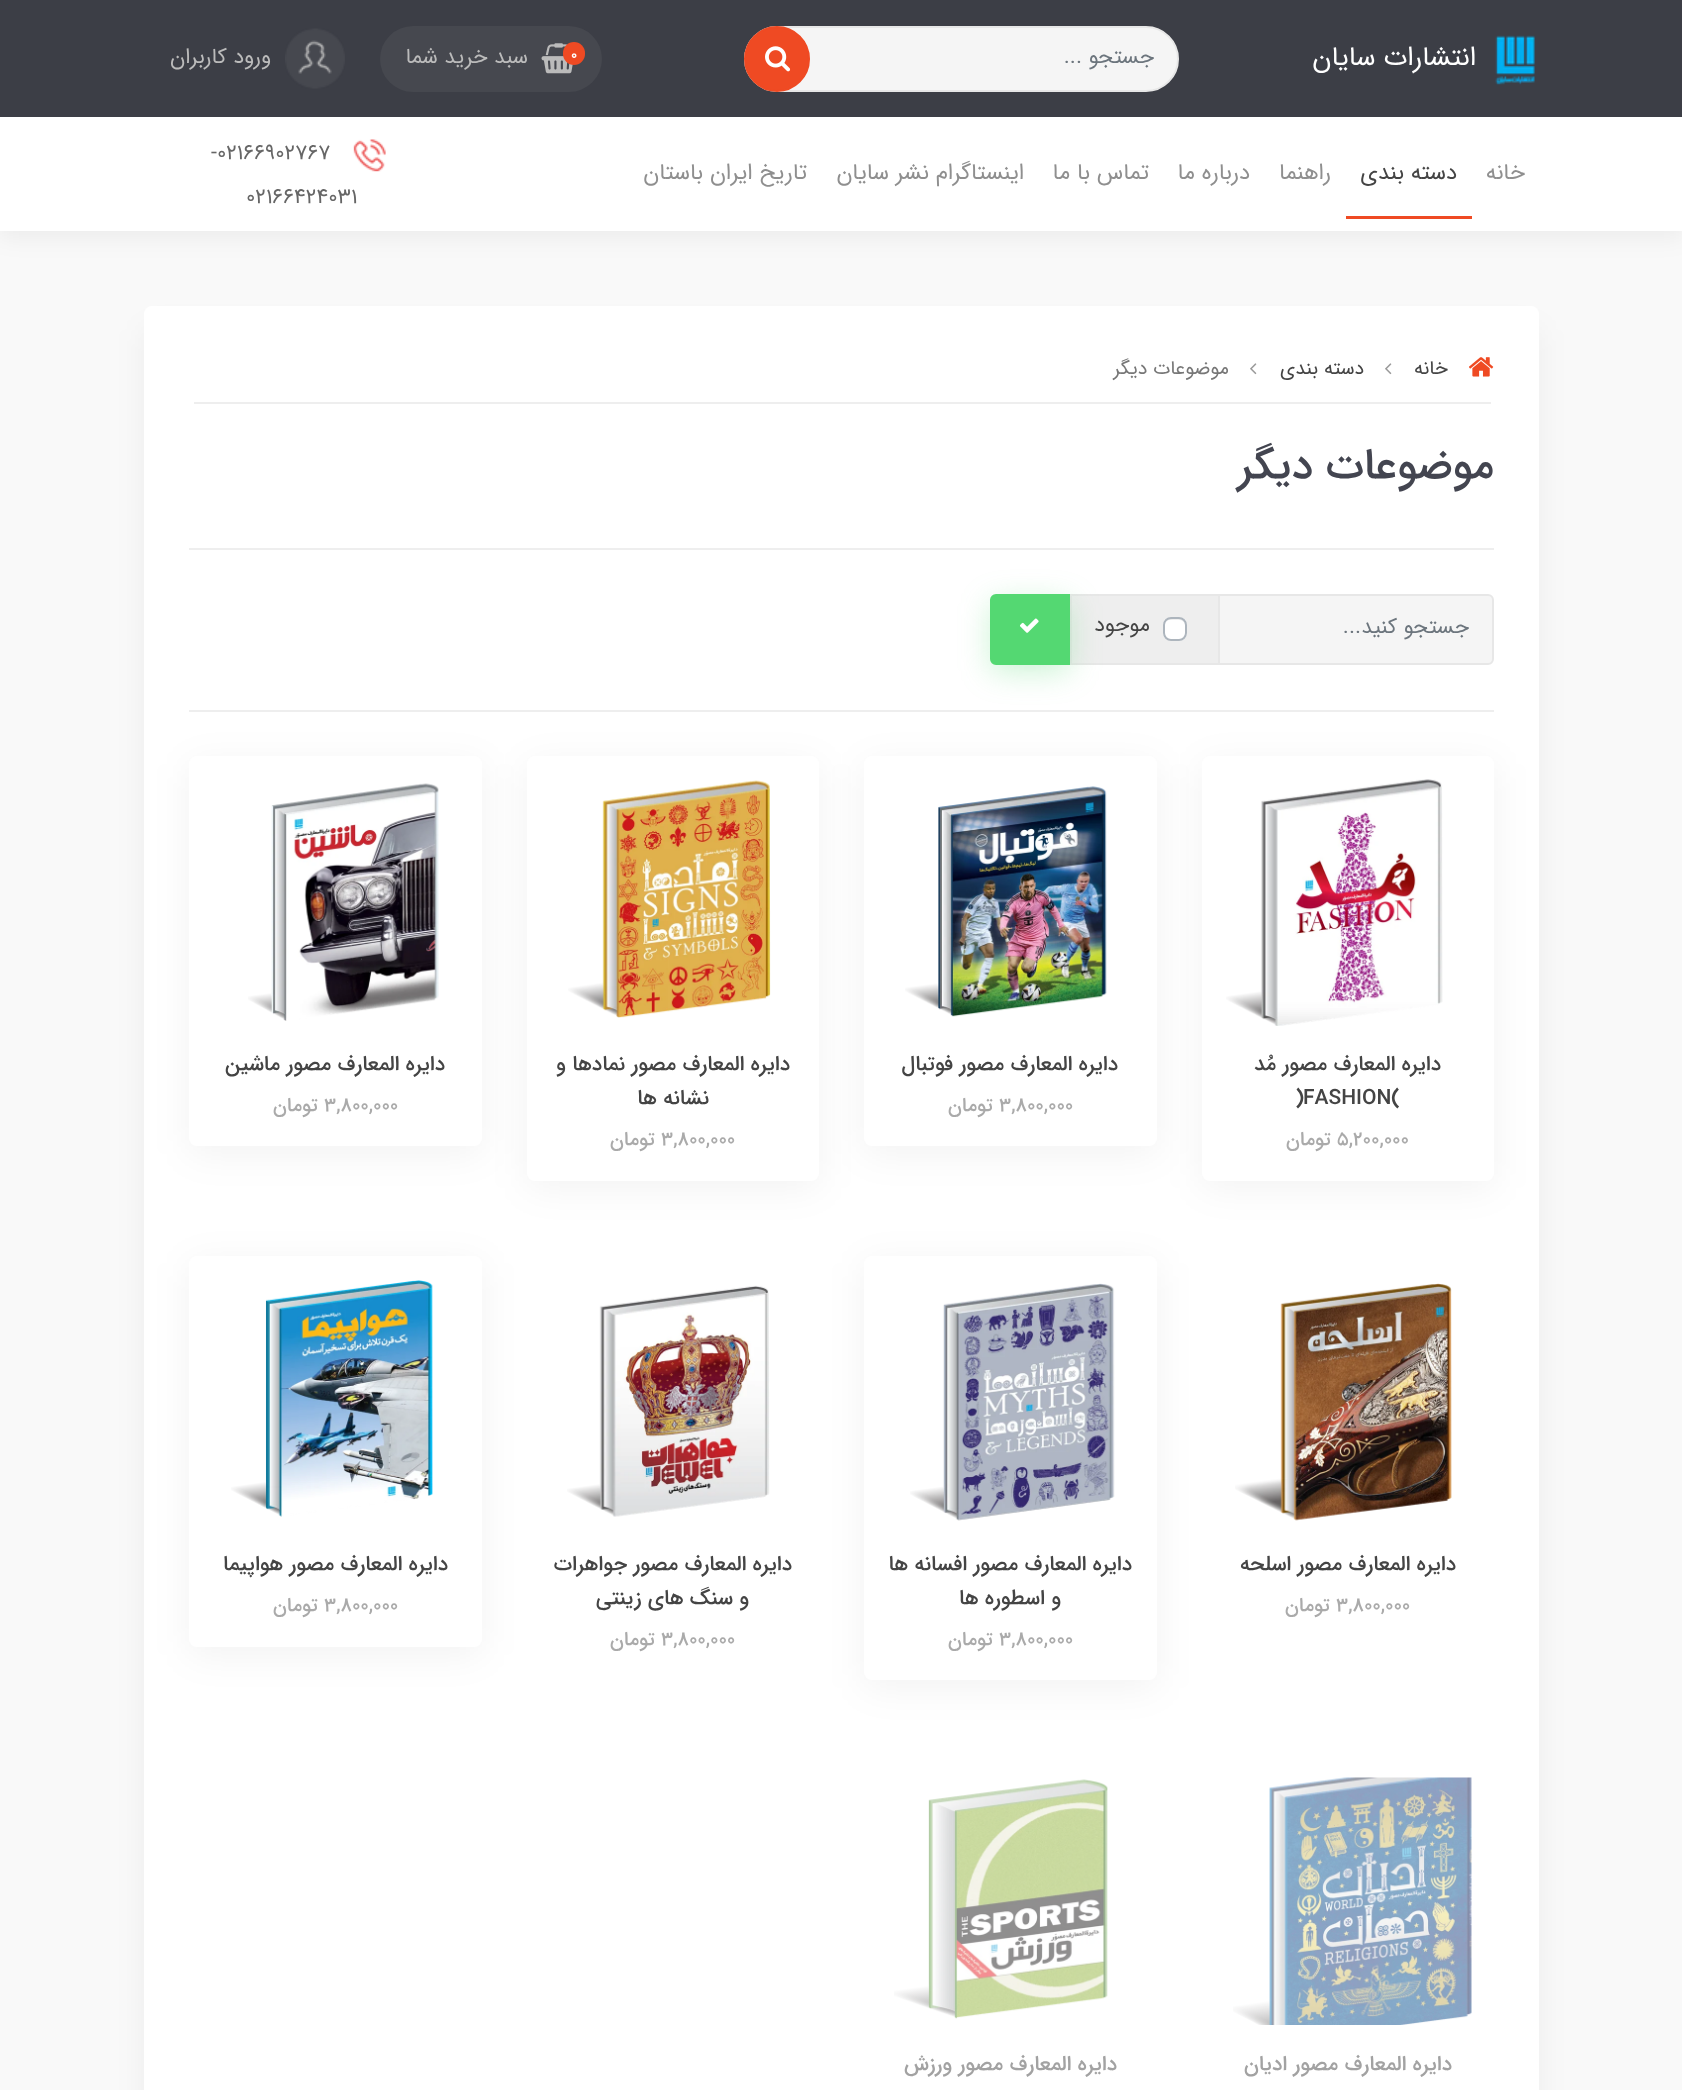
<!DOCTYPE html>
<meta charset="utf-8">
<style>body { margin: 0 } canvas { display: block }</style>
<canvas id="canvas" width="1682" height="2090"></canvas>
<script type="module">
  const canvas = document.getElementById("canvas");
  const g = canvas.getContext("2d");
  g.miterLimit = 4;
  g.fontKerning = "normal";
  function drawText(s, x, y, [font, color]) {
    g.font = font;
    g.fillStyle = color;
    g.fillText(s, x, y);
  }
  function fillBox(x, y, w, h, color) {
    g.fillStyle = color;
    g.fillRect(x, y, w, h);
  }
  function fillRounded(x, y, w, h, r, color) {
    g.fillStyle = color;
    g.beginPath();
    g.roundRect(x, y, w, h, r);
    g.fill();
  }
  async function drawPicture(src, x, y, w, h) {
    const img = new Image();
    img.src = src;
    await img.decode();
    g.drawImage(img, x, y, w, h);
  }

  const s1 = ["27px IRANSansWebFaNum", "#FFFFFF"];
  const s2 = ["21.5px IRANSansWebFaNum", "#6C757D"];
  const s3 = ["bold 14px IRANSansWebFaNum", "#FFFFFF"];
  const s4 = ["21.5px IRANSansWebFaNum", "#BBBBBB"];
  const s5 = ["22.5px IRANSansWebFaNum", "#8F8F8F"];
  const s6 = ["22.5px IRANSansWebFaNum", "#444444"];
  const s7 = ["21.5px IRANSansWebFaNum", "#666666"];
  const s8 = ["19.5px IRANSansWebFaNum", "#444444"];
  const s9 = ["19.5px IRANSansWebFaNum", "#777777"];
  const s10 = ["500 43.25px IRANSansWebFaNum", "#434550"];
  const s11 = ["21.5px IRANSansWebFaNum", "#444444"];
  const s12 = ["500 21px IRANSansWebFaNum", "#444444"];
  const s13 = ["500 19.5px IRANSansWebFaNum", "#AAAAAA"];
  const s14 = ["500 21px IRANSansWebFaNum", "#A2A2A2"];

  fillBox(0, 0, 1682, 2090, "#F9F9F9");
  g.fillStyle = "rgba(0, 0, 0, 0.05)";
  g.filter = "blur(11px)";
  g.beginPath();
  g.rect(0, 8, 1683, 231);
  g.fill();
  g.filter = "none";
  fillBox(0, 0, 1682, 117, "#3C3E46");
  await drawPicture("pic1.png", 1495, 35, 40, 50);
  g.direction = "rtl";
  drawText("انتشارات سایان", 1476, 65, s1);
  g.fillStyle = "#F5F5F5";
  g.beginPath();
  g.roundRect(745, 27, 433, 64, 32);
  g.fill();
  g.strokeStyle = "#E7E7E7";
  g.lineWidth = 2;
  g.stroke();
  drawText("جستجو ...", 1154, 63, s2);
  g.fillStyle = "#EF4A23";
  g.beginPath();
  g.arc(777, 59, 32, 0, Math.PI * 2);
  g.fill();
  g.strokeStyle = "#EF4A23";
  g.stroke();
  await drawPicture("pic2.png", 765, 46, 26, 26);
  fillRounded(380, 26, 222, 66, 33, "#46484F");
  await drawPicture("pic3.png", 541, 43, 32, 31);
  fillRounded(563, 42, 22, 23, 11, "#EF4A23");
  g.direction = "ltr";
  drawText("0", 571, 59, s3);
  g.direction = "rtl";
  drawText("سبد خرید شما", 528, 63, s4);
  await drawPicture("pic4.png", 285, 28, 60, 61);
  drawText("ورود کاربران", 271, 63, s4);
  fillBox(0, 117, 1682, 114, "#FFFFFF");
  drawText("خانه", 1525, 179, s5);
  fillBox(1346, 216, 126, 3, "#EF4A23");
  drawText("دسته بندی", 1457, 179, s6);
  drawText("راهنما", 1331, 179, s5);
  drawText("درباره ما", 1250, 179, s5);
  drawText("تماس با ما", 1149, 179, s5);
  drawText("اینستاگرام نشر سایان", 1024, 179, s5);
  drawText("تاریخ ایران باستان", 807, 179, s5);
  await drawPicture("pic5.png", 353, 139, 33, 33);
  g.direction = "ltr";
  drawText("-02166902767", 211, 159, s7);
  drawText("02166424031", 246, 203, s7);
  g.fillStyle = "rgba(0, 0, 0, 0.05)";
  g.filter = "blur(15px)";
  g.beginPath();
  g.roundRect(144, 329, 1395, 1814, 8);
  g.fill();
  g.filter = "none";
  fillRounded(144, 306, 1395, 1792, 8, "#FFFFFF");
  fillBox(194, 402, 1297, 2, "#EEEEEE");
  await drawPicture("pic6.png", 1469, 357, 25, 20);
  g.direction = "rtl";
  drawText("خانه", 1448, 374, s8);
  await drawPicture("pic7.png", 1385, 363, 7, 12);
  drawText("دسته بندی", 1364, 374, s8);
  await drawPicture("pic7.png", 1250, 363, 7, 12);
  drawText("موضوعات دیگر", 1229, 374, s9);
  drawText("موضوعات دیگر", 1494, 478, s10);
  fillBox(189, 548, 1305, 2, "#EEEEEE");
  g.beginPath();
  g.rect(1071, 595, 148, 69);
  g.fill();
  g.strokeStyle = "#E7E7E7";
  g.stroke();
  g.fillStyle = "#F5F5F5";
  g.beginPath();
  g.roundRect(1219, 595, 274, 69, [0, 5, 5, 0]);
  g.fill();
  g.stroke();
  drawText("جستجو کنید...", 1469, 633, s2);
  fillRounded(1163, 617, 24, 24, 8, "#FFFFFF");
  g.fillStyle = "#ECECEC";
  g.beginPath();
  g.moveTo(1170, 620);
  g.bezierCurveTo(1175, 620, 1185, 618, 1185, 626);
  g.bezierCurveTo(1185, 618, 1181.5, 618, 1174.5, 618);
  g.bezierCurveTo(1167.5, 618, 1164, 618, 1164, 626);
  g.bezierCurveTo(1164, 622, 1167, 620, 1170, 620);
  g.closePath();
  g.fill();
  g.beginPath();
  g.roundRect(1164, 618, 22, 22, 7);
  g.strokeStyle = "#ADB5BD";
  g.stroke();
  drawText("موجود", 1150, 631, s11);
  fillBox(189, 710, 1305, 2, "#EEEEEE");
  g.fillStyle = "rgba(84, 216, 114, 0.3)";
  g.filter = "blur(15px)";
  g.beginPath();
  g.roundRect(990, 602, 80, 70, 6);
  g.fill();
  g.filter = "none";
  g.fillStyle = "#54D872";
  g.beginPath();
  g.roundRect(991, 595, 78, 69, [5, 0, 0, 5]);
  g.fill();
  g.strokeStyle = "#54D872";
  g.stroke();
  await drawPicture("pic8.png", 1020, 618, 19, 15);
  g.fillStyle = "rgba(0, 0, 0, 0.05)";
  g.filter = "blur(19px)";
  g.beginPath();
  g.roundRect(1202, 764, 292, 424, 8);
  g.fill();
  g.filter = "none";
  fillRounded(1202, 756, 292, 425, 8, "#FFFFFF");
  await drawPicture("pic9.png", 1226, 779, 217, 247);
  drawText("دایره المعارف مصور مُد", 1441, 1070, s12);
  g.direction = "ltr";
  drawText("FASHION(", 1303, 1104, s12);
  drawText(")", 1295, 1104, s12);
  drawText("5,200,000", 1337, 1145, s13);
  g.direction = "rtl";
  drawText("تومان", 1331, 1145, s13);
  g.fillStyle = "rgba(0, 0, 0, 0.05)";
  g.filter = "blur(19px)";
  g.beginPath();
  g.roundRect(864, 764, 293, 390, 8);
  g.fill();
  g.filter = "none";
  fillRounded(864, 756, 293, 390, 8, "#FFFFFF");
  await drawPicture("pic10.png", 905, 786, 202, 231);
  drawText("دایره المعارف مصور فوتبال", 1118, 1070, s12);
  g.direction = "ltr";
  drawText("3,800,000", 999, 1111, s13);
  g.direction = "rtl";
  drawText("تومان", 993, 1111, s13);
  g.fillStyle = "rgba(0, 0, 0, 0.05)";
  g.filter = "blur(19px)";
  g.beginPath();
  g.roundRect(527, 764, 292, 424, 8);
  g.fill();
  g.filter = "none";
  fillRounded(527, 756, 292, 425, 8, "#FFFFFF");
  await drawPicture("pic11.png", 568, 780, 203, 238);
  drawText("دایره المعارف مصور نمادها و", 790, 1070, s12);
  drawText("نشانه ها", 709, 1104, s12);
  g.direction = "ltr";
  drawText("3,800,000", 661, 1145, s13);
  g.direction = "rtl";
  drawText("تومان", 655, 1145, s13);
  g.fillStyle = "rgba(0, 0, 0, 0.05)";
  g.filter = "blur(19px)";
  g.beginPath();
  g.roundRect(189, 764, 293, 390, 8);
  g.fill();
  g.filter = "none";
  fillRounded(189, 756, 293, 390, 8, "#FFFFFF");
  await drawPicture("pic12.png", 248, 783, 191, 238);
  drawText("دایره المعارف مصور ماشین", 445, 1070, s12);
  g.direction = "ltr";
  drawText("3,800,000", 324, 1111, s13);
  g.direction = "rtl";
  drawText("تومان", 318, 1111, s13);
  await drawPicture("pic13.png", 1235, 1283, 217, 238);
  drawText("دایره المعارف مصور اسلحه", 1456, 1570, s12);
  g.direction = "ltr";
  drawText("3,800,000", 1336, 1611, s13);
  g.direction = "rtl";
  drawText("تومان", 1330, 1611, s13);
  g.fillStyle = "rgba(0, 0, 0, 0.05)";
  g.filter = "blur(19px)";
  g.beginPath();
  g.roundRect(864, 1263, 293, 425, 8);
  g.fill();
  g.filter = "none";
  fillRounded(864, 1256, 293, 424, 8, "#FFFFFF");
  await drawPicture("pic14.png", 910, 1283, 205, 238);
  drawText("دایره المعارف مصور افسانه ها", 1132, 1570, s12);
  drawText("و اسطوره ها", 1061, 1604, s12);
  g.direction = "ltr";
  drawText("3,800,000", 999, 1645, s13);
  g.direction = "rtl";
  drawText("تومان", 993, 1645, s13);
  await drawPicture("pic15.png", 567, 1285, 203, 232);
  drawText("دایره المعارف مصور جواهرات", 792, 1570, s12);
  drawText("و سنگ های زینتی", 749, 1604, s12);
  g.direction = "ltr";
  drawText("3,800,000", 661, 1645, s13);
  g.direction = "rtl";
  drawText("تومان", 655, 1645, s13);
  g.fillStyle = "rgba(0, 0, 0, 0.05)";
  g.filter = "blur(19px)";
  g.beginPath();
  g.roundRect(189, 1263, 293, 392, 8);
  g.fill();
  g.filter = "none";
  fillRounded(189, 1256, 293, 391, 8, "#FFFFFF");
  await drawPicture("pic16.png", 231, 1280, 202, 237);
  drawText("دایره المعارف مصور هواپیما", 448, 1570, s12);
  g.direction = "ltr";
  drawText("3,800,000", 324, 1611, s13);
  g.direction = "rtl";
  drawText("تومان", 318, 1611, s13);
  await drawPicture("pic17.png", 1233, 1777, 239, 248);
  drawText("دایره المعارف مصور ادیان", 1452, 2070, s14);
  await drawPicture("pic18.png", 894, 1779, 214, 240);
  drawText("دایره المعارف مصور ورزش", 1117, 2070, s14);
</script>
